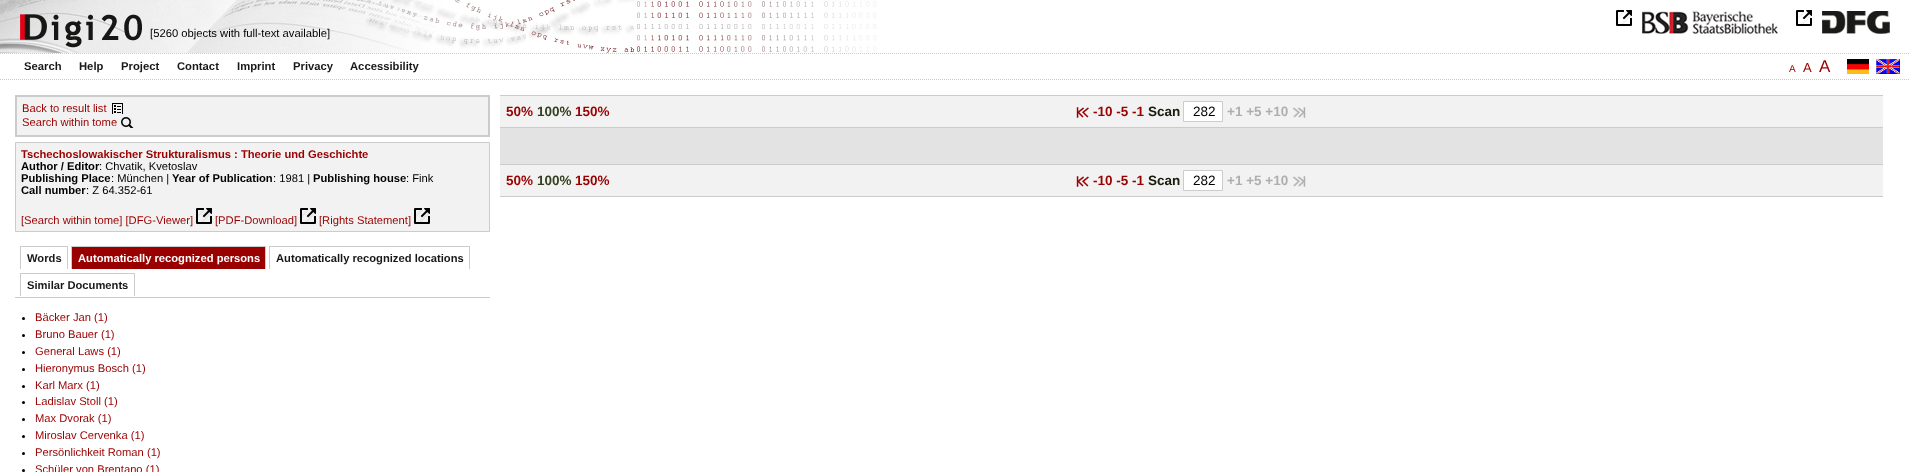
<!DOCTYPE html>
<meta charset="utf-8">
<style>body { margin: 0 } canvas { display: block }</style>
<canvas id="canvas" width="1911" height="472"></canvas>
<script type="module">
  const canvas = document.getElementById("canvas");
  const g = canvas.getContext("2d");
  g.miterLimit = 4;
  g.fontKerning = "normal";
  function drawText(s, x, y, [font, color]) {
    g.font = font;
    g.fillStyle = color;
    g.fillText(s, x, y);
  }
  function fillBox(x, y, w, h, color) {
    g.fillStyle = color;
    g.fillRect(x, y, w, h);
  }
  async function drawPicture(src, x, y, w, h) {
    const img = new Image();
    img.src = src;
    await img.decode();
    g.drawImage(img, x, y, w, h);
  }

  const s1 = ["11.25px Liberation Sans", "#000000"];
  const s2 = ["bold 11.25px Liberation Sans", "#181818"];
  const s3 = ["10px Liberation Sans", "#990000"];
  const s4 = ["13px Liberation Sans", "#990000"];
  const s5 = ["17px Liberation Sans", "#990000"];
  const s6 = ["11.2px Liberation Sans", "#990000"];
  const s7 = ["bold 11.2px Liberation Sans", "#990000"];
  const s8 = ["bold 11.2px Liberation Sans", "#000000"];
  const s9 = ["11.2px Liberation Sans", "#000000"];
  const s10 = ["bold 11.2px Liberation Sans", "#181818"];
  const s11 = ["bold 11.2px Liberation Sans", "#FFFFFF"];
  const s12 = ["bold 13.5px Liberation Sans", "#990000"];
  const s13 = ["bold 13.5px Liberation Sans", "#333F1D"];
  const s14 = ["bold 13.5px Liberation Sans", "#171C0D"];
  const s15 = ["13.5px Liberation Sans", "#000000"];
  const s16 = ["bold 13.5px Liberation Sans", "#AEAEAE"];

  fillBox(0, 0, 1911, 472, "#FFFFFF");
  await drawPicture("pic1.png", 0, 0, 877, 53);
  drawText("[5260 objects with full-text available]", 150, 37, s1);
  await drawPicture("pic2.png", 1642, 10, 136, 24);
  await drawPicture("pic3.png", 1616, 10, 16, 16);
  await drawPicture("pic4.png", 1822, 11, 68, 23);
  await drawPicture("pic3.png", 1796, 10, 16, 16);
  g.beginPath();
  g.moveTo(0, 53.5);
  g.lineTo(1910, 53.5);
  g.strokeStyle = "#CCCCCC";
  g.setLineDash([1, 1]);
  g.stroke();
  g.beginPath();
  g.moveTo(0, 79.5);
  g.lineTo(1910, 79.5);
  g.stroke();
  drawText("Search", 24, 70, s2);
  drawText("Help", 79, 70, s2);
  drawText("Project", 121, 70, s2);
  drawText("Contact", 177, 70, s2);
  drawText("Imprint", 237, 70, s2);
  drawText("Privacy", 293, 70, s2);
  drawText("Accessibility", 350, 70, s2);
  drawText("A", 1789, 72, s3);
  drawText("A", 1803, 72, s4);
  drawText("A", 1819, 72, s5);
  await drawPicture("pic5.png", 1847, 59, 22, 15);
  await drawPicture("pic6.png", 1876, 59, 24, 15);
  g.fillStyle = "#F2F2F2";
  g.beginPath();
  g.rect(16, 96, 473, 40);
  g.fill();
  g.lineWidth = 2;
  g.setLineDash([]);
  g.stroke();
  drawText("Back to result list", 22, 112, s6);
  await drawPicture("pic7.png", 112, 103, 11, 11);
  drawText("Search within tome", 22, 126, s6);
  await drawPicture("pic8.png", 121, 117, 13, 11);
  g.fillStyle = "#F2F2F2";
  g.beginPath();
  g.rect(15.5, 142.5, 474, 89);
  g.fill();
  g.lineWidth = 1;
  g.stroke();
  drawText("Tschechoslowakischer Strukturalismus : Theorie und Geschichte", 21, 158, s7);
  drawText("Author / Editor", 21, 170, s8);
  drawText(": Chvatik, Kvetoslav", 99, 170, s9);
  drawText("Publishing Place", 21, 182, s8);
  drawText(": München |", 111, 182, s9);
  drawText("Year of Publication", 172, 182, s8);
  drawText(": 1981 |", 273, 182, s9);
  drawText("Publishing house", 313, 182, s8);
  drawText(": Fink", 406, 182, s9);
  drawText("Call number", 21, 194, s8);
  drawText(": Z 64.352-61", 86, 194, s9);
  drawText("[Search within tome] [DFG-Viewer]", 21, 224, s6);
  await drawPicture("pic9.png", 196, 208, 16, 16);
  drawText("[PDF-Download]", 215, 224, s6);
  await drawPicture("pic9.png", 300, 208, 16, 16);
  drawText("[Rights Statement]", 319, 224, s6);
  await drawPicture("pic9.png", 414, 208, 16, 16);
  fillBox(15, 297, 475, 1, "#CCCCCC");
  drawText("Words", 27, 262, s10);
  fillBox(20, 246, 48, 1, "#CCCCCC");
  fillBox(67, 246, 1, 23, "#CCCCCC");
  fillBox(20, 246, 1, 23, "#CCCCCC");
  fillBox(72, 247, 193, 22, "#990000");
  drawText("Automatically recognized persons", 78, 262, s11);
  fillBox(71, 246, 195, 1, "#CCCCCC");
  fillBox(265, 246, 1, 23, "#CCCCCC");
  fillBox(71, 246, 1, 23, "#CCCCCC");
  drawText("Automatically recognized locations", 276, 262, s10);
  fillBox(269, 246, 201, 1, "#CCCCCC");
  fillBox(469, 246, 1, 23, "#CCCCCC");
  fillBox(269, 246, 1, 23, "#CCCCCC");
  drawText("Similar Documents", 27, 289, s10);
  fillBox(20, 273, 115, 1, "#CCCCCC");
  fillBox(134, 273, 1, 23, "#CCCCCC");
  fillBox(20, 273, 1, 23, "#CCCCCC");
  g.fillStyle = "#000000";
  g.beginPath();
  g.arc(23.5, 318.5, 1.5, 0, Math.PI * 2);
  g.fill();
  drawText("Bäcker Jan (1)", 35, 321, s6);
  g.fillStyle = "#000000";
  g.beginPath();
  g.arc(23.5, 335.5, 1.5, 0, Math.PI * 2);
  g.fill();
  drawText("Bruno Bauer (1)", 35, 338, s6);
  g.fillStyle = "#000000";
  g.beginPath();
  g.arc(23.5, 352.5, 1.5, 0, Math.PI * 2);
  g.fill();
  drawText("General Laws (1)", 35, 355, s6);
  g.fillStyle = "#000000";
  g.beginPath();
  g.arc(23.5, 369.5, 1.5, 0, Math.PI * 2);
  g.fill();
  drawText("Hieronymus Bosch (1)", 35, 372, s6);
  g.fillStyle = "#000000";
  g.beginPath();
  g.arc(23.5, 386.5, 1.5, 0, Math.PI * 2);
  g.fill();
  drawText("Karl Marx (1)", 35, 389, s6);
  g.fillStyle = "#000000";
  g.beginPath();
  g.arc(23.5, 402.5, 1.5, 0, Math.PI * 2);
  g.fill();
  drawText("Ladislav Stoll (1)", 35, 405, s6);
  g.fillStyle = "#000000";
  g.beginPath();
  g.arc(23.5, 419.5, 1.5, 0, Math.PI * 2);
  g.fill();
  drawText("Max Dvorak (1)", 35, 422, s6);
  g.fillStyle = "#000000";
  g.beginPath();
  g.arc(23.5, 436.5, 1.5, 0, Math.PI * 2);
  g.fill();
  drawText("Miroslav Cervenka (1)", 35, 439, s6);
  g.fillStyle = "#000000";
  g.beginPath();
  g.arc(23.5, 453.5, 1.5, 0, Math.PI * 2);
  g.fill();
  drawText("Persönlichkeit Roman (1)", 35, 456, s6);
  g.fillStyle = "#000000";
  g.beginPath();
  g.arc(23.5, 470.5, 1.5, 0, Math.PI * 2);
  g.fill();
  drawText("Schüler von Brentano (1)", 35, 473, s6);
  fillBox(500, 96, 1383, 31, "#F2F2F2");
  fillBox(500, 95, 1383, 1, "#CCCCCC");
  fillBox(500, 127, 1383, 1, "#CCCCCC");
  drawText("50%", 506, 116, s12);
  drawText("100%", 537, 116, s13);
  drawText("150%", 575, 116, s12);
  await drawPicture("pic10.png", 1076, 107, 13, 11);
  drawText("-10 -5 -1", 1093, 116, s12);
  drawText("Scan", 1148, 116, s14);
  g.fillStyle = "#FFFFFF";
  g.beginPath();
  g.rect(1183.5, 101.5, 39, 20);
  g.fill();
  g.stroke();
  drawText("282", 1193, 116, s15);
  drawText("+1 +5 +10", 1227, 116, s16);
  await drawPicture("pic11.png", 1292, 107, 14, 11);
  fillBox(500, 128, 1383, 36, "#E3E3E3");
  fillBox(500, 165, 1383, 31, "#F2F2F2");
  fillBox(500, 164, 1383, 1, "#CCCCCC");
  fillBox(500, 196, 1383, 1, "#CCCCCC");
  drawText("50%", 506, 185, s12);
  drawText("100%", 537, 185, s13);
  drawText("150%", 575, 185, s12);
  await drawPicture("pic10.png", 1076, 176, 13, 11);
  drawText("-10 -5 -1", 1093, 185, s12);
  drawText("Scan", 1148, 185, s14);
  g.fillStyle = "#FFFFFF";
  g.beginPath();
  g.rect(1183.5, 170.5, 39, 20);
  g.fill();
  g.stroke();
  drawText("282", 1193, 185, s15);
  drawText("+1 +5 +10", 1227, 185, s16);
  await drawPicture("pic11.png", 1292, 176, 14, 11);
</script>
